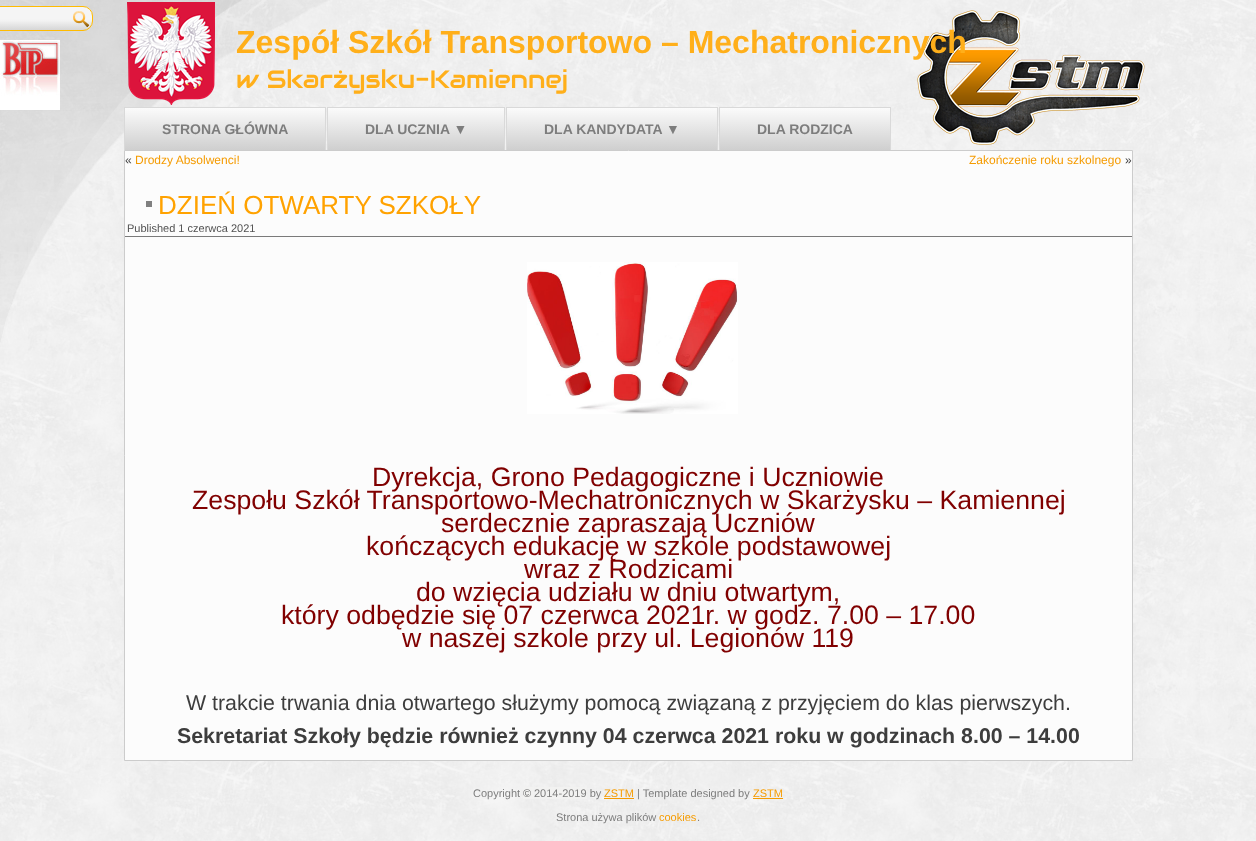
<!DOCTYPE html>
<meta charset="utf-8">
<style>body { margin: 0 } canvas { display: block }</style>
<canvas id="canvas" width="1256" height="841"></canvas>
<script type="module">
  const canvas = document.getElementById("canvas");
  const g = canvas.getContext("2d");
  g.miterLimit = 4;
  g.fontKerning = "normal";
  function drawText(s, x, y, [font, color]) {
    g.font = font;
    g.fillStyle = color;
    g.fillText(s, x, y);
  }
  function fillBox(x, y, w, h, color) {
    g.fillStyle = color;
    g.fillRect(x, y, w, h);
  }
  async function drawPicture(src, x, y, w, h) {
    const img = new Image();
    img.src = src;
    await img.decode();
    g.drawImage(img, x, y, w, h);
  }
  let gradient;

  const s1 = ["bold 32px Liberation Sans", "#FFAF1A"];
  const s2 = ["25px Audiowide", "#FFAF1A"];
  const s3 = ["bold 14px Liberation Sans", "#7D7D7D"];
  const s4 = ["12px Liberation Sans", "#3D3D3D"];
  const s5 = ["12px Liberation Sans", "#F59B00"];
  const s6 = ["26px Liberation Sans", "#FFA200"];
  const s7 = ["11px Liberation Sans", "#525252"];
  const s8 = ["26.7px Liberation Sans", "#800000"];
  const s9 = ["21.35px Liberation Sans", "#3D3D3D"];
  const s10 = ["bold 21.35px Liberation Sans", "#3D3D3D"];
  const s11 = ["11px Liberation Sans", "#7D7D7D"];
  const s12 = ["11px Liberation Sans", "#696969"];
  const s13 = ["11px Liberation Sans", "#F59B00"];

  fillBox(0, 0, 1256, 841, "#F5F5F5");
  await drawPicture("pic1.png", 0, 0, 1256, 841);
  g.save();
  g.beginPath();
  g.roundRect(-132, 6, 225, 25, 10);
  g.clip();
  gradient = g.createLinearGradient(-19, 7, -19, 30);
  gradient.addColorStop(0, "#F5F5F5");
  gradient.addColorStop(0.5, "#F5F5F5");
  gradient.addColorStop(0.6, "#F2F2F2");
  gradient.addColorStop(1, "#D6D6D6");
  g.fillStyle = gradient;
  g.fillRect(0, 7, 92, 23);
  g.restore();
  g.beginPath();
  g.roundRect(-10.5, 6.5, 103, 24, 9.5);
  g.strokeStyle = "#FFBB00";
  g.stroke();
  await drawPicture("pic2.png", 73, 11, 16, 16);
  await drawPicture("pic3.png", 127, 2, 88, 103);
  await drawPicture("pic4.png", 917, 10, 228, 135);
  await drawPicture("pic5.png", 0, 40, 60, 70);
  drawText("Zespół Szkół Transportowo – Mechatronicznych", 236, 53, s1);
  drawText("w Skarżysku-Kamiennej", 236, 88, s2);
  gradient = g.createLinearGradient(225, 107, 225, 150);
  gradient.addColorStop(0, "#FCFCFC");
  gradient.addColorStop(1, "#CFCFCF");
  g.fillStyle = gradient;
  g.fillRect(125, 108, 200, 42);
  fillBox(124, 107, 202, 1, "#D9D9D9");
  fillBox(325, 107, 1, 43, "#D9D9D9");
  fillBox(124, 107, 1, 43, "#D9D9D9");
  drawText("STRONA GŁÓWNA", 162, 134, s3);
  gradient = g.createLinearGradient(416, 107, 416, 150);
  gradient.addColorStop(0, "#FCFCFC");
  gradient.addColorStop(1, "#CFCFCF");
  g.fillStyle = gradient;
  g.fillRect(328, 108, 176, 42);
  fillBox(327, 107, 178, 1, "#D9D9D9");
  fillBox(504, 107, 1, 43, "#D9D9D9");
  fillBox(327, 107, 1, 43, "#D9D9D9");
  drawText("DLA UCZNIA ▼", 365, 134, s3);
  gradient = g.createLinearGradient(612, 107, 612, 150);
  gradient.addColorStop(0, "#FCFCFC");
  gradient.addColorStop(1, "#CFCFCF");
  g.fillStyle = gradient;
  g.fillRect(507, 108, 210, 42);
  fillBox(506, 107, 212, 1, "#D9D9D9");
  fillBox(717, 107, 1, 43, "#D9D9D9");
  fillBox(506, 107, 1, 43, "#D9D9D9");
  drawText("DLA KANDYDATA ▼", 544, 134, s3);
  gradient = g.createLinearGradient(805, 107, 805, 150);
  gradient.addColorStop(0, "#FCFCFC");
  gradient.addColorStop(1, "#CFCFCF");
  g.fillStyle = gradient;
  g.fillRect(720, 108, 170, 42);
  fillBox(719, 107, 172, 1, "#D9D9D9");
  fillBox(890, 107, 1, 43, "#D9D9D9");
  fillBox(719, 107, 1, 43, "#D9D9D9");
  drawText("DLA RODZICA", 757, 134, s3);
  g.fillStyle = "#FCFCFC";
  g.beginPath();
  g.rect(124.5, 150.5, 1008, 610);
  g.fill();
  g.strokeStyle = "#CCCCCC";
  g.stroke();
  drawText("«", 125, 164, s4);
  drawText("Drodzy Absolwenci!", 135, 164, s5);
  drawText("Zakończenie roku szkolnego", 969, 164, s5);
  drawText("»", 1125, 164, s4);
  fillBox(125, 236, 1007, 1, "#7A7A7A");
  fillBox(146, 201, 6, 6, "#808080");
  drawText("DZIEŃ OTWARTY SZKOŁY", 158, 214, s6);
  drawText("Published 1 czerwca 2021", 127, 232, s7);
  await drawPicture("pic6.png", 527, 262, 211, 152);
  drawText("Dyrekcja, Grono Pedagogiczne i Uczniowie", 372, 486, s8);
  drawText("Zespołu Szkół Transportowo-Mechatronicznych w Skarżysku – Kamiennej", 192, 509, s8);
  drawText("serdecznie zapraszają Uczniów", 441, 532, s8);
  drawText("kończących edukację w szkole podstawowej", 366, 555, s8);
  drawText("wraz z Rodzicami", 524, 578, s8);
  drawText("do wzięcia udziału w dniu otwartym,", 416, 601, s8);
  drawText("który odbędzie się 07 czerwca 2021r. w godz. 7.00 – 17.00", 281, 624, s8);
  drawText("w naszej szkole przy ul. Legionów 119", 402, 647, s8);
  drawText("W trakcie trwania dnia otwartego służymy pomocą związaną z przyjęciem do klas pierwszych.", 186, 710, s9);
  drawText("Sekretariat Szkoły będzie również czynny 04 czerwca 2021 roku w godzinach 8.00 – 14.00", 177, 743, s10);
  drawText("Copyright", 473, 797, s11);
  fillBox(523, 787, 11, 12, "#F2F2F1");
  drawText("©", 523, 797, s12);
  fillBox(535, 787, 52, 12, "#F2F2F1");
  drawText("2014-2019 by", 534, 797, s11);
  drawText("ZSTM", 604, 797, s13);
  fillBox(604, 798, 30, 1, "#F59B00");
  drawText("| Template designed by", 637, 797, s11);
  drawText("ZSTM", 753, 797, s13);
  fillBox(753, 798, 30, 1, "#F59B00");
  drawText("Strona używa plików", 556, 821, s11);
  drawText("cookies", 659, 821, s13);
  drawText(".", 697, 821, s11);
</script>
